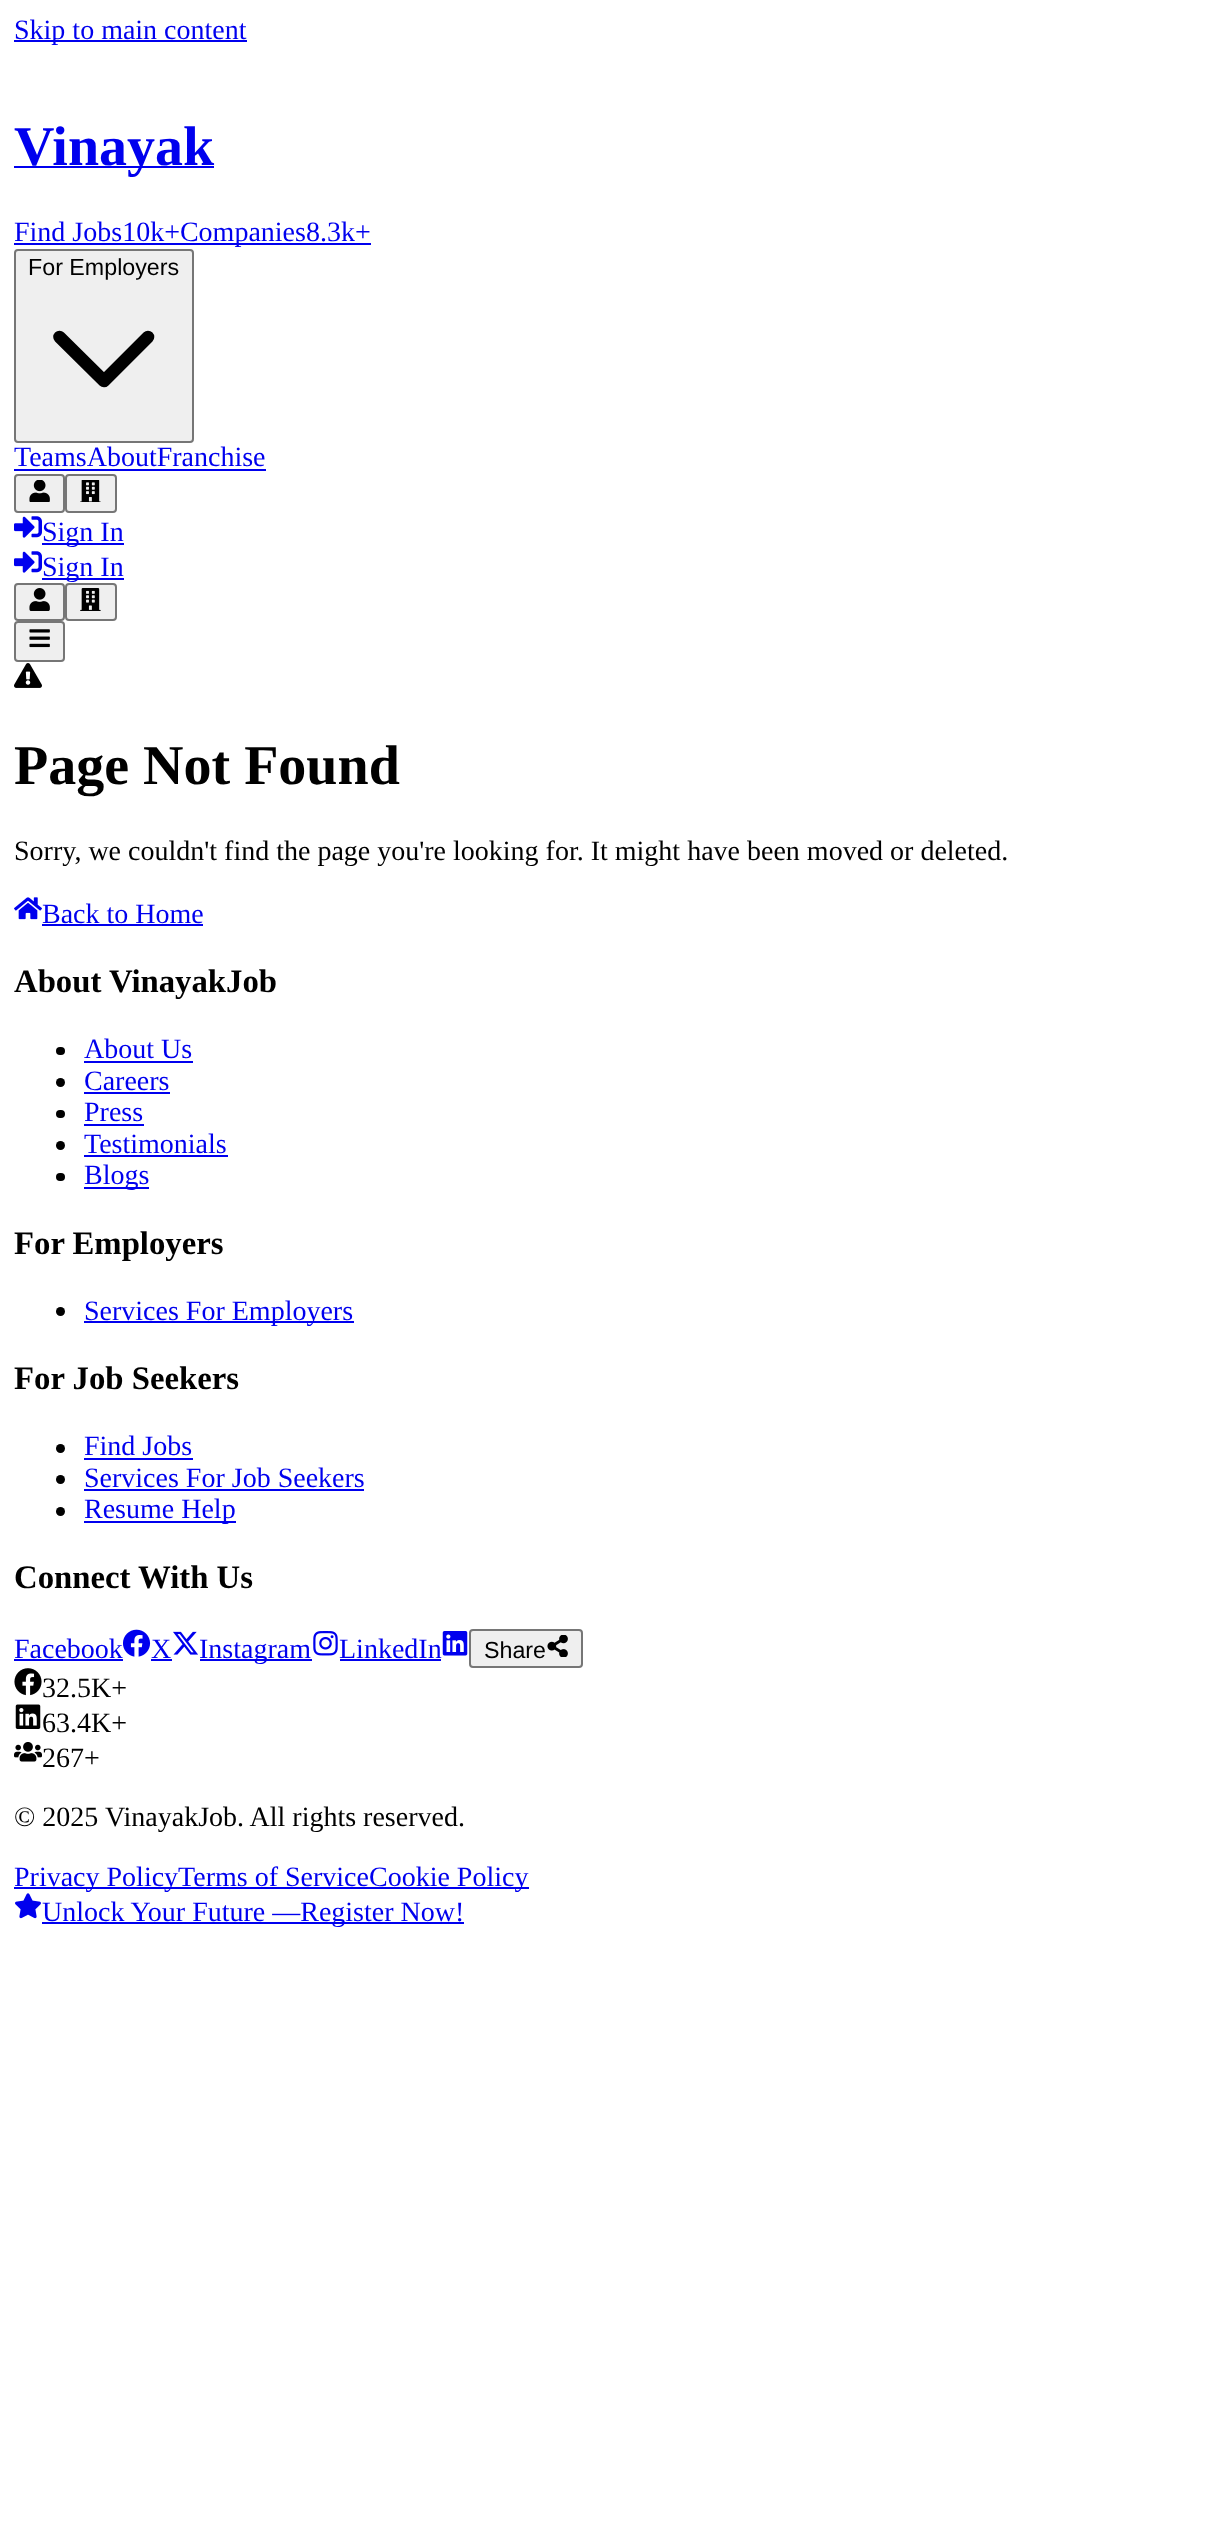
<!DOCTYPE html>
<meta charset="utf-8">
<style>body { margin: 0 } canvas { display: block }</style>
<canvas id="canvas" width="1230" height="2538"></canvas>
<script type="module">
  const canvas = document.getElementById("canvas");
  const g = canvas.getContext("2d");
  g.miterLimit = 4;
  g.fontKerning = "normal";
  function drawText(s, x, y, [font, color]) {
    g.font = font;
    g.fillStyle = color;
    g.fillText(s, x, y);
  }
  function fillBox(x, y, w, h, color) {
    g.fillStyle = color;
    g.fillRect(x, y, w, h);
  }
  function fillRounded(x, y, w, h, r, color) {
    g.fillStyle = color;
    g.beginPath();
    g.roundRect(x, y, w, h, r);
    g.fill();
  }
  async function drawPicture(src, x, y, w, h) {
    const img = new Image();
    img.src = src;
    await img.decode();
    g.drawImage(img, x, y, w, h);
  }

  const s1 = ["28px Liberation Serif", "#0000EE"];
  const s2 = ["bold 56px Liberation Serif", "#0000EE"];
  const s3 = ["23.25px Liberation Sans", "#000000"];
  const s4 = ["bold 56px Liberation Serif", "#000000"];
  const s5 = ["28px Liberation Serif", "#000000"];
  const s6 = ["bold 32.75px Liberation Serif", "#000000"];

  fillBox(0, 0, 1230, 2538, "#FFFFFF");
  fillBox(14, 40, 233, 2, "#0000EE");
  drawText("Skip to main content", 14, 39, s1);
  fillBox(14, 166, 200, 2, "#0000EE");
  drawText("Vinayak", 14, 165, s2);
  fillBox(14, 243, 357, 2, "#0000EE");
  drawText("Find Jobs10k+Companies8.3k+", 14, 241, s1);
  g.fillStyle = "#EFEFEF";
  g.beginPath();
  g.roundRect(15, 250, 178, 192, 3);
  g.fill();
  g.strokeStyle = "#767676";
  g.lineWidth = 2;
  g.stroke();
  drawText("For Employers", 28, 275, s3);
  g.beginPath();
  g.moveTo(148, 337);
  g.lineTo(104, 381);
  g.lineTo(59.5, 337);
  g.strokeStyle = "#000000";
  g.lineWidth = 12.6;
  g.lineCap = "round";
  g.lineJoin = "round";
  g.stroke();
  drawText("TeamsAboutFranchise", 14, 466, s1);
  fillBox(14, 469, 252, 2, "#0000EE");
  g.fillStyle = "#EFEFEF";
  g.beginPath();
  g.roundRect(15, 475, 49, 37, 3);
  g.fill();
  g.strokeStyle = "#767676";
  g.lineWidth = 2;
  g.lineJoin = "miter";
  g.stroke();
  await drawPicture("pic1.png", 29, 480, 21, 22);
  g.beginPath();
  g.roundRect(66, 475, 50, 37, 3);
  g.fill();
  g.stroke();
  await drawPicture("pic2.png", 80, 480, 21, 22);
  await drawPicture("pic3.png", 14, 516, 28, 22);
  fillBox(42, 543, 82, 2, "#0000EE");
  drawText("Sign In", 42, 541, s1);
  await drawPicture("pic3.png", 14, 551, 28, 22);
  fillBox(42, 578, 82, 2, "#0000EE");
  drawText("Sign In", 42, 576, s1);
  g.fillStyle = "#EFEFEF";
  g.beginPath();
  g.roundRect(15, 584, 49, 36, 3);
  g.fill();
  g.stroke();
  await drawPicture("pic4.png", 29, 588, 21, 23);
  g.beginPath();
  g.roundRect(66, 584, 50, 36, 3);
  g.fill();
  g.stroke();
  await drawPicture("pic5.png", 80, 588, 21, 23);
  g.beginPath();
  g.roundRect(15, 622, 49, 39, 3);
  g.fill();
  g.stroke();
  await drawPicture("pic6.png", 29, 629, 21, 19);
  await drawPicture("pic7.png", 14, 663, 28, 25);
  drawText("Page Not Found", 14, 784, s4);
  drawText("Sorry, we couldn't find the page you're looking for. It might have been moved or deleted.", 14, 860, s5);
  await drawPicture("pic8.png", 14, 897, 28, 23);
  drawText("Back to Home", 42, 923, s1);
  fillBox(42, 924, 161, 2, "#0000EE");
  drawText("About VinayakJob", 14, 992, s6);
  fillRounded(56, 1047, 9, 8, 4, "#000000");
  drawText("About Us", 84, 1058, s1);
  fillBox(84, 1061, 109, 2, "#0000EE");
  g.fillStyle = "#000000";
  g.beginPath();
  g.arc(60.5, 1082.5, 4.5, 0, Math.PI * 2);
  g.fill();
  drawText("Careers", 84, 1090, s1);
  fillBox(84, 1092, 86, 2, "#0000EE");
  fillRounded(56, 1110, 9, 8, 4, "#000000");
  drawText("Press", 84, 1121, s1);
  fillBox(84, 1124, 60, 2, "#0000EE");
  g.fillStyle = "#000000";
  g.beginPath();
  g.arc(60.5, 1145.5, 4.5, 0, Math.PI * 2);
  g.fill();
  drawText("Testimonials", 84, 1153, s1);
  fillBox(84, 1155, 144, 2, "#0000EE");
  fillRounded(56, 1173, 9, 8, 4, "#000000");
  fillBox(84, 1187, 65, 2, "#0000EE");
  drawText("Blogs", 84, 1184, s1);
  drawText("For Employers", 14, 1254, s6);
  g.beginPath();
  g.arc(60.5, 1311.5, 4.5, 0, Math.PI * 2);
  g.fill();
  fillBox(84, 1321, 270, 2, "#0000EE");
  drawText("Services For Employers", 84, 1320, s1);
  drawText("For Job Seekers", 14, 1389, s6);
  g.beginPath();
  g.arc(60.5, 1448.5, 4.5, 0, Math.PI * 2);
  g.fill();
  drawText("Find Jobs", 84, 1455, s1);
  fillBox(84, 1458, 109, 2, "#0000EE");
  g.fillStyle = "#000000";
  g.beginPath();
  g.arc(60.5, 1479.5, 4.5, 0, Math.PI * 2);
  g.fill();
  drawText("Services For Job Seekers", 84, 1487, s1);
  fillBox(84, 1489, 280, 2, "#0000EE");
  g.fillStyle = "#000000";
  g.beginPath();
  g.arc(60.5, 1511.5, 4.5, 0, Math.PI * 2);
  g.fill();
  fillBox(84, 1521, 152, 2, "#0000EE");
  drawText("Resume Help", 84, 1518, s1);
  drawText("Connect With Us", 14, 1588, s6);
  drawText("Facebook", 14, 1658, s1);
  fillBox(14, 1659, 109, 2, "#0000EE");
  await drawPicture("pic9.png", 123, 1629, 28, 28);
  drawText("X", 151, 1658, s1);
  fillBox(151, 1659, 21, 2, "#0000EE");
  await drawPicture("pic10.png", 173, 1631, 25, 24);
  fillBox(200, 1659, 112, 2, "#0000EE");
  drawText("Instagram", 199, 1658, s1);
  await drawPicture("pic11.png", 313, 1631, 25, 25);
  drawText("LinkedIn", 339, 1658, s1);
  fillBox(340, 1659, 101, 2, "#0000EE");
  await drawPicture("pic12.png", 442, 1631, 26, 25);
  g.fillStyle = "#EFEFEF";
  g.beginPath();
  g.roundRect(470, 1630, 112, 37, 3);
  g.fill();
  g.stroke();
  drawText("Share", 484, 1658, s3);
  await drawPicture("pic13.png", 547, 1635, 21, 22);
  await drawPicture("pic14.png", 14, 1668, 28, 28);
  drawText("32.5K+", 42, 1697, s5);
  await drawPicture("pic15.png", 15, 1704, 26, 25);
  drawText("63.4K+", 42, 1732, s5);
  await drawPicture("pic16.png", 14, 1742, 28, 20);
  drawText("267+", 42, 1767, s5);
  drawText("© 2025", 14, 1826, s5);
  drawText("VinayakJob. All rights reserved.", 105, 1826, s5);
  fillBox(14, 1887, 515, 2, "#0000EE");
  drawText("Privacy PolicyTerms of ServiceCookie Policy", 14, 1886, s1);
  await drawPicture("pic17.png", 15, 1893, 26, 26);
  fillBox(42, 1922, 422, 2, "#0000EE");
  drawText("Unlock Your Future —Register Now!", 42, 1921, s1);
</script>
